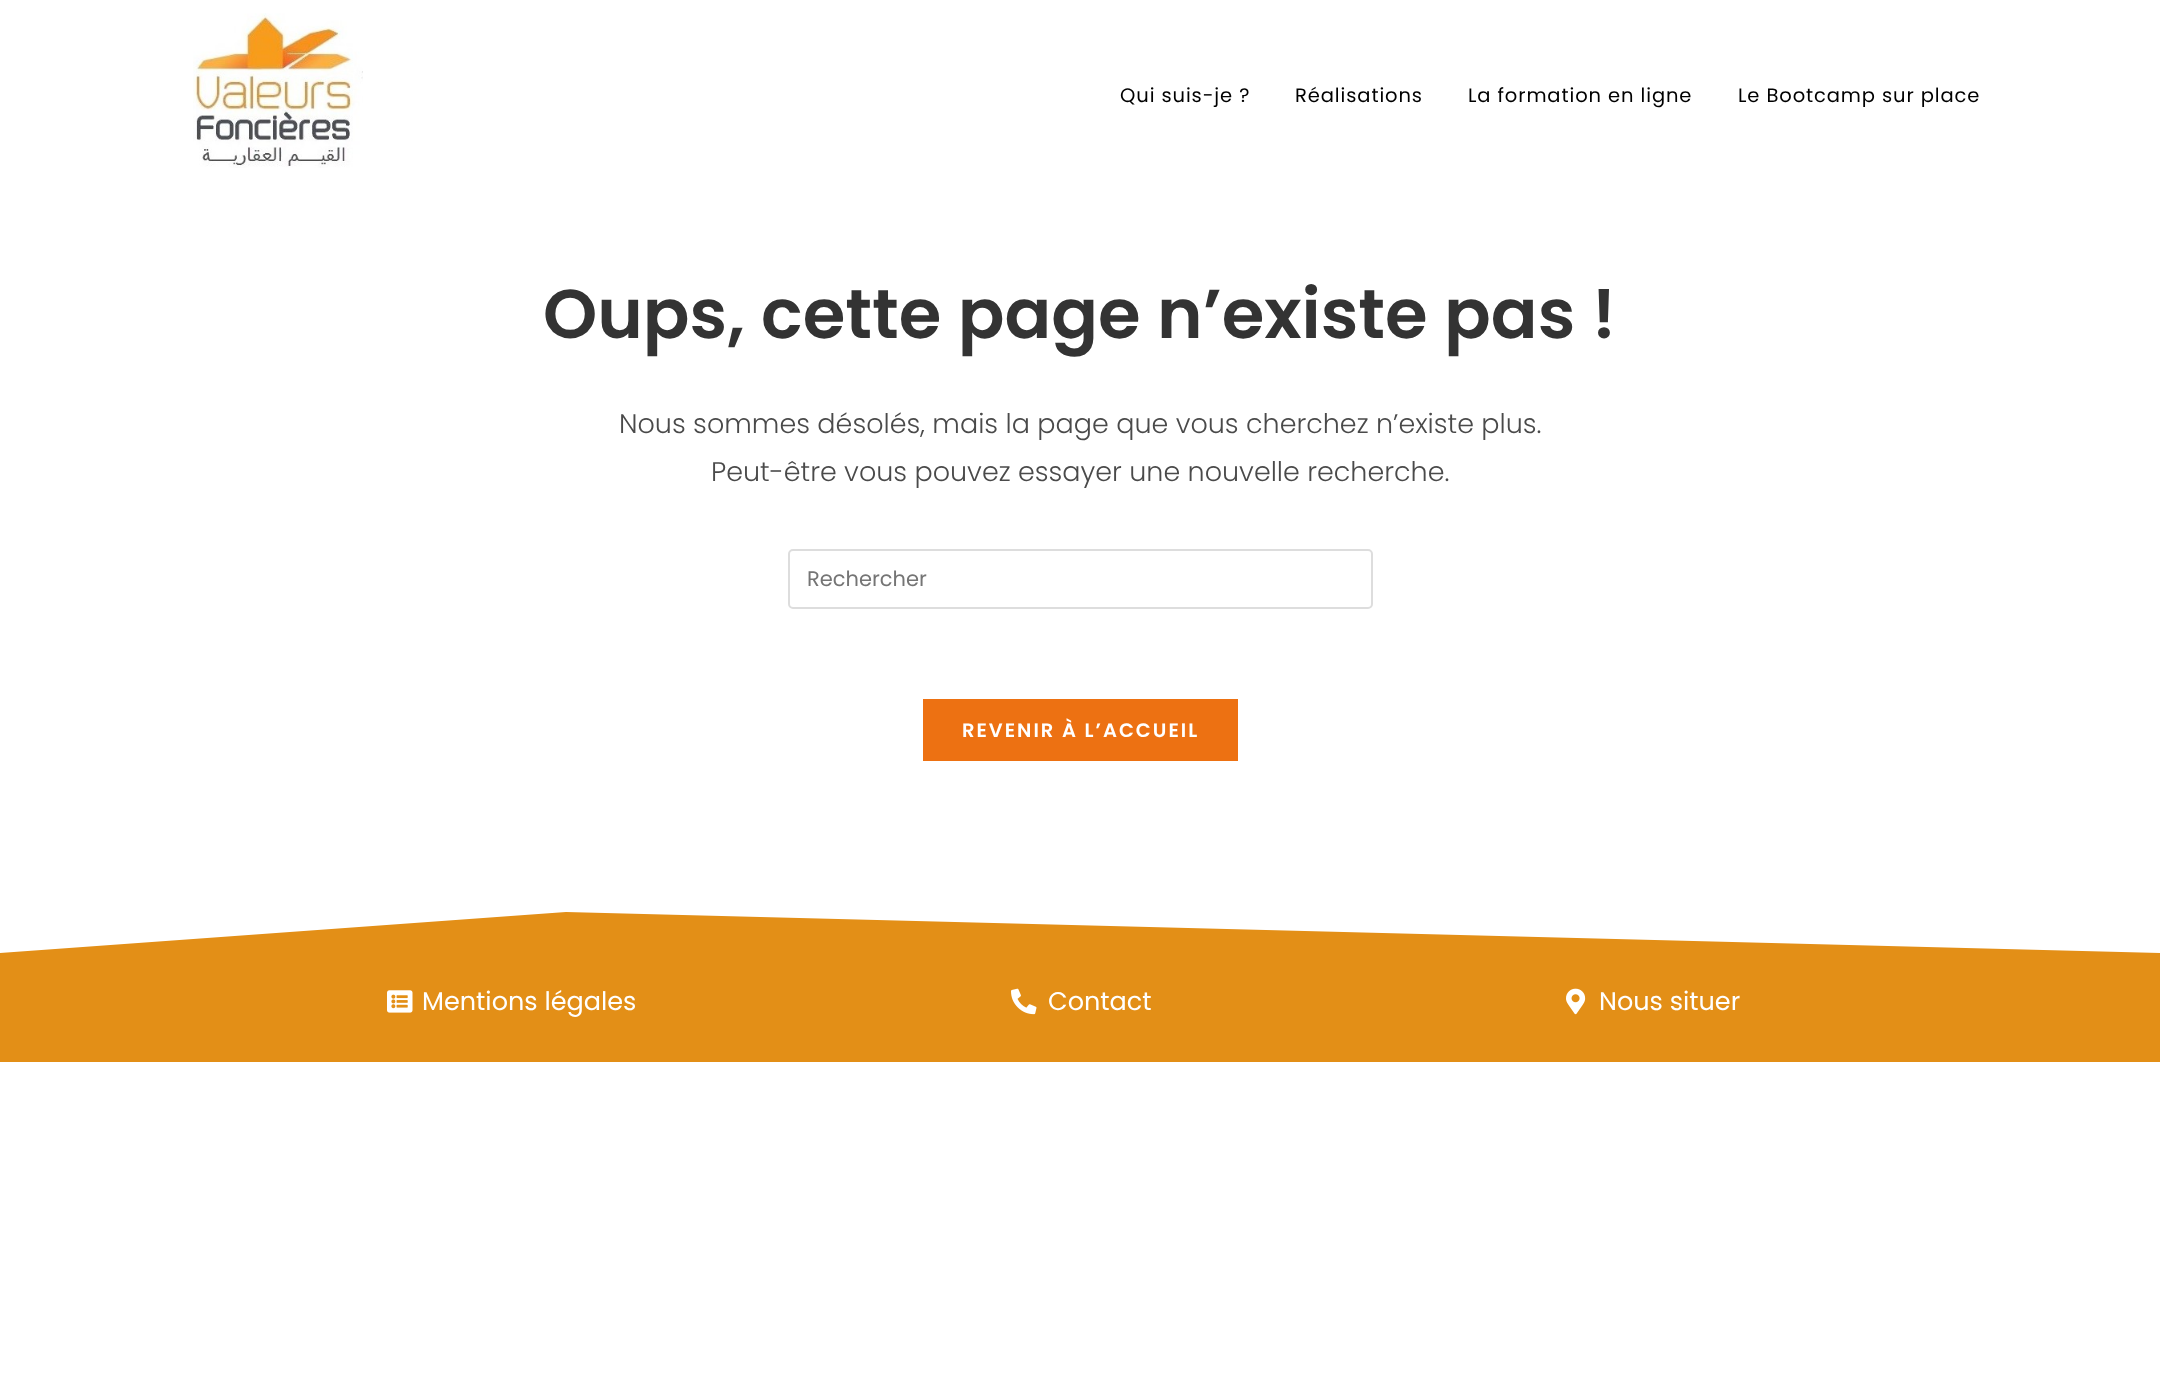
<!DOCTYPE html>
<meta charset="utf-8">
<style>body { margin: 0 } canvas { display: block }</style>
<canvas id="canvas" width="2160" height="1391"></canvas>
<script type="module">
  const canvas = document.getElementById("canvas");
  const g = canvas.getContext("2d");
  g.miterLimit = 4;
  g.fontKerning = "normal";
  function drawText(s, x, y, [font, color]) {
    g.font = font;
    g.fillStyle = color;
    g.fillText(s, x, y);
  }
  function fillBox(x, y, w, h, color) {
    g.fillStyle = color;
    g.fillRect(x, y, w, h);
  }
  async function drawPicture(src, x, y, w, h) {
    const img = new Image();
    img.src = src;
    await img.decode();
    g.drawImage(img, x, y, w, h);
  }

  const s1 = ["19.5px Poppins", "#000000"];
  const s2 = ["600 69px Poppins", "#333333"];
  const s3 = ["300 27px Poppins", "#4A4A4A"];
  const s4 = ["21px Poppins", "#757575"];
  const s5 = ["600 19.5px Poppins", "#FFFFFF"];
  const s6 = ["25.5px Poppins", "#FFFFFF"];

  fillBox(0, 0, 2160, 1391, "#FFFFFF");
  await drawPicture("pic1.png", 193, 13, 170, 155);
  g.letterSpacing = "0.9px";
  drawText("Qui suis-je ?", 1120, 102, s1);
  drawText("Réalisations", 1295, 102, s1);
  drawText("La formation en ligne", 1468, 102, s1);
  drawText("Le Bootcamp sur place", 1738, 102, s1);
  g.letterSpacing = "0px";
  drawText("Oups, cette page n’existe pas !", 543, 338, s2);
  drawText("Nous sommes désolés, mais la page que vous cherchez n’existe plus.", 619, 433, s3);
  drawText("Peut-être vous pouvez essayer une nouvelle recherche.", 711, 481, s3);
  g.beginPath();
  g.roundRect(789, 550, 583, 58, 4);
  g.strokeStyle = "#DDDDDD";
  g.lineWidth = 2;
  g.stroke();
  drawText("Rechercher", 807, 586, s4);
  fillBox(923, 699, 315, 62, "#ED7112");
  g.letterSpacing = "2px";
  drawText("REVENIR À L’ACCUEIL", 962, 737, s5);
  fillBox(0, 912, 2160, 150, "#E38F17");
  g.fillStyle = "#FFFFFF";
  g.beginPath();
  g.moveTo(566, 912);
  g.lineTo(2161, 953);
  g.lineTo(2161, 910);
  g.lineTo(-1, 910);
  g.lineTo(-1, 953);
  g.closePath();
  g.fill();
  await drawPicture("pic2.png", 387, 990, 26, 23);
  g.letterSpacing = "0px";
  drawText("Mentions légales", 422, 1010, s6);
  await drawPicture("pic3.png", 1011, 988, 26, 27);
  drawText("Contact", 1048, 1010, s6);
  await drawPicture("pic4.png", 1566, 988, 20, 27);
  drawText("Nous situer", 1599, 1010, s6);
</script>
